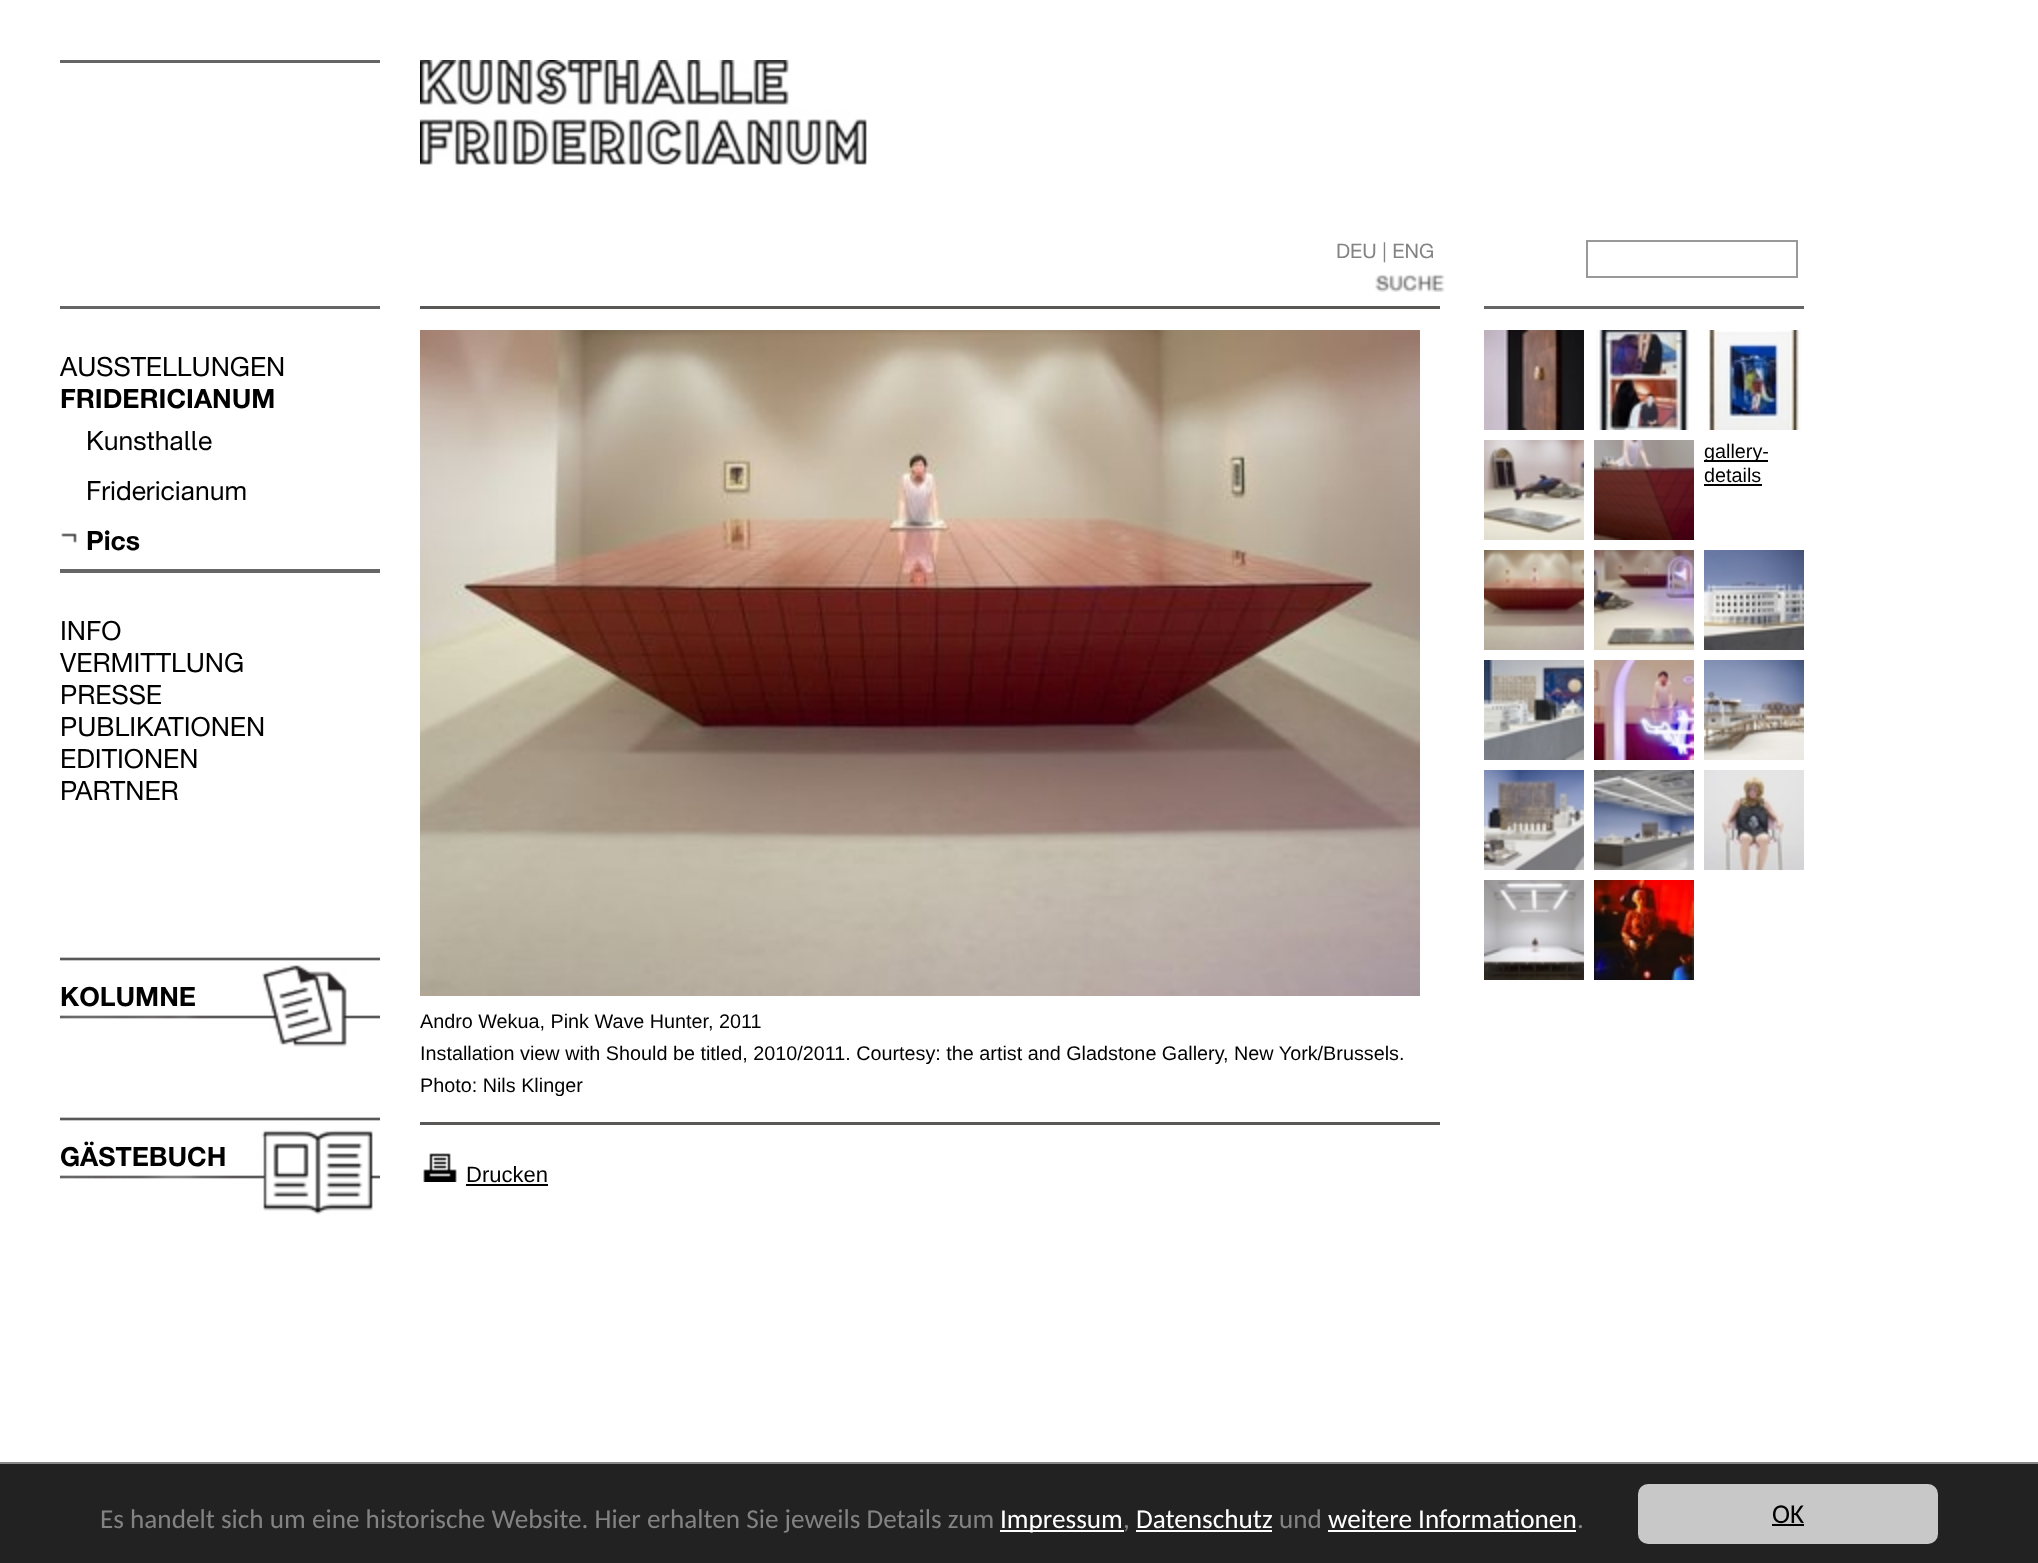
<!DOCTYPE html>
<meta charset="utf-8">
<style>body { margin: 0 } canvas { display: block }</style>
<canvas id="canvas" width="2038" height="1563"></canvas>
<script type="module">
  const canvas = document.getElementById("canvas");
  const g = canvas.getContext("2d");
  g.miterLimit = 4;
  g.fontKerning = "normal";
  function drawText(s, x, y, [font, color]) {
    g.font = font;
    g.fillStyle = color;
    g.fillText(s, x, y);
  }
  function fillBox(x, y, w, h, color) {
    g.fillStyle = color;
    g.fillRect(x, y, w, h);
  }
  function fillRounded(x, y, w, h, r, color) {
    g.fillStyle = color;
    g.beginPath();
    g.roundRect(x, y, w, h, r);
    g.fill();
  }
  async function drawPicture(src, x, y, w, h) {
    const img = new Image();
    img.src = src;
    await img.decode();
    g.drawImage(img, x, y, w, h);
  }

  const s1 = ["20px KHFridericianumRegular", "#838383"];
  const s2 = ["26.5px KHFridericianumRegular", "#000000"];
  const s3 = ["bold 26.5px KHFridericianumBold", "#000000"];
  const s4 = ["19.8px Liberation Sans", "#000000"];
  const s5 = ["22px Liberation Sans", "#000000"];
  const s6 = ["27.2px Carlito", "#838383"];
  const s7 = ["27.2px Carlito", "#FFFFFF"];
  const s8 = ["27.2px Carlito", "#000000"];

  fillBox(0, 0, 2038, 1563, "#FFFFFF");
  fillBox(60, 60, 320, 3, "#666666");
  await drawPicture("pic1.png", 420, 60, 447, 105);
  drawText("DEU | ENG", 1336, 258, s1);
  await drawPicture("pic2.png", 1375, 274, 70, 18);
  g.strokeStyle = "#999999";
  g.lineWidth = 2;
  g.strokeRect(1587, 241, 210, 36);
  fillBox(60, 306, 320, 3, "#666666");
  drawText("AUSSTELLUNGEN", 60, 376, s2);
  drawText("FRIDERICIANUM", 60, 408, s3);
  drawText("Kunsthalle", 86, 450, s2);
  drawText("Fridericianum", 86, 500, s2);
  await drawPicture("pic3.png", 61, 533, 16, 10);
  drawText("Pics", 86, 550, s3);
  fillBox(60, 569, 320, 4, "#666666");
  drawText("INFO", 60, 640, s2);
  drawText("VERMITTLUNG", 60, 672, s2);
  drawText("PRESSE", 60, 704, s2);
  drawText("PUBLIKATIONEN", 60, 736, s2);
  drawText("EDITIONEN", 60, 768, s2);
  drawText("PARTNER", 60, 800, s2);
  await drawPicture("pic4.png", 60, 957, 320, 90);
  drawText("KOLUMNE", 60, 1006, s3);
  await drawPicture("pic5.png", 60, 1117, 320, 98);
  drawText("GÄSTEBUCH", 60, 1166, s3);
  fillBox(1484, 306, 320, 3, "#666666");
  await drawPicture("pic6.png", 1484, 330, 100, 100);
  await drawPicture("pic7.png", 1596, 330, 93, 100);
  await drawPicture("pic8.png", 1707, 330, 94, 100);
  await drawPicture("pic9.png", 1484, 440, 100, 100);
  await drawPicture("pic10.png", 1594, 440, 100, 100);
  fillBox(1704, 460, 64, 2, "#000000");
  drawText("gallery-", 1704, 458, s4);
  drawText("details", 1704, 482, s4);
  fillBox(1704, 484, 58, 2, "#000000");
  await drawPicture("pic11.png", 1484, 550, 100, 100);
  await drawPicture("pic12.png", 1594, 550, 100, 100);
  await drawPicture("pic13.png", 1704, 550, 100, 100);
  await drawPicture("pic14.png", 1484, 660, 100, 100);
  await drawPicture("pic15.png", 1594, 660, 100, 100);
  await drawPicture("pic16.png", 1704, 660, 100, 100);
  await drawPicture("pic17.png", 1484, 770, 100, 100);
  await drawPicture("pic18.png", 1594, 770, 100, 100);
  await drawPicture("pic19.png", 1704, 770, 100, 100);
  await drawPicture("pic20.png", 1484, 880, 100, 100);
  await drawPicture("pic21.png", 1594, 880, 100, 100);
  fillBox(420, 306, 1020, 3, "#5A5757");
  await drawPicture("pic22.png", 420, 330, 1000, 666);
  drawText("Andro Wekua, Pink Wave Hunter, 2011", 420, 1028, s4);
  drawText("Installation view with Should be titled, 2010/2011. Courtesy: the artist and Gladstone Gallery, New York/Brussels.", 420, 1060, s4);
  drawText("Photo: Nils Klinger", 420, 1092, s4);
  fillBox(420, 1122, 1020, 3, "#5A5757");
  await drawPicture("pic23.png", 423, 1153, 34, 29);
  drawText("Drucken", 466, 1182, s5);
  fillBox(466, 1184, 82, 2, "#000000");
  fillBox(0, 1464, 2038, 99, "#222222");
  fillBox(0, 1462, 2038, 2, "#888888");
  drawText("Es handelt sich um eine historische Website. Hier erhalten Sie jeweils Details zum", 100, 1528, s6);
  fillBox(1000, 1530, 124, 2, "#FFFFFF");
  drawText("Impressum", 1000, 1528, s7);
  drawText(",", 1123, 1528, s6);
  drawText("Datenschutz", 1136, 1528, s7);
  fillBox(1136, 1530, 136, 2, "#FFFFFF");
  drawText("und", 1279, 1528, s6);
  drawText("weitere Informationen", 1328, 1528, s7);
  fillBox(1328, 1530, 248, 2, "#FFFFFF");
  drawText(".", 1577, 1528, s6);
  fillRounded(1638, 1484, 300, 60, 10, "#C8C8C8");
  drawText("OK", 1772, 1523, s8);
  fillBox(1772, 1524, 32, 2, "#000000");
</script>
